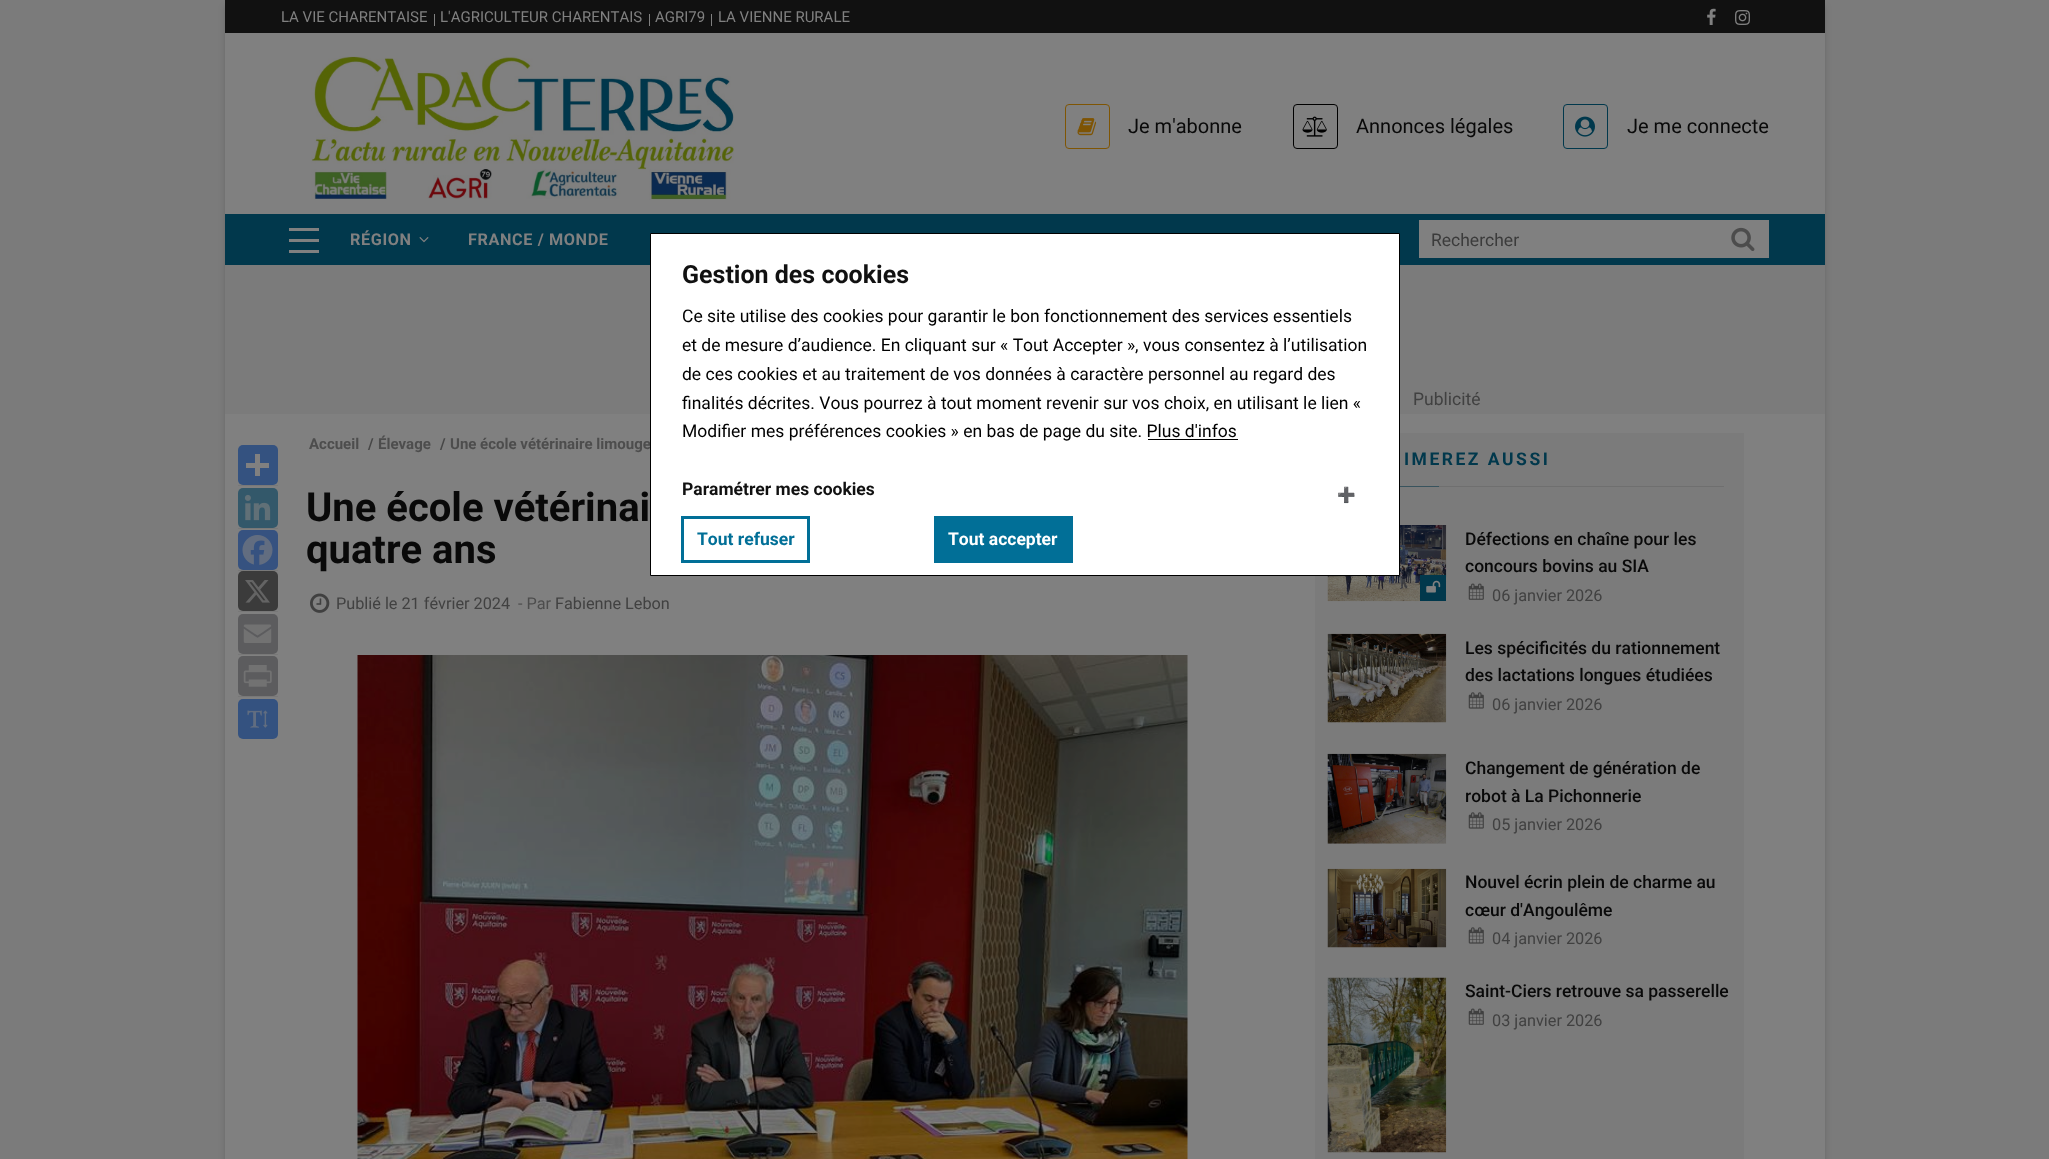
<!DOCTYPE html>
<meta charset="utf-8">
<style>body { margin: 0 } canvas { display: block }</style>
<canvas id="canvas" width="2049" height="1159"></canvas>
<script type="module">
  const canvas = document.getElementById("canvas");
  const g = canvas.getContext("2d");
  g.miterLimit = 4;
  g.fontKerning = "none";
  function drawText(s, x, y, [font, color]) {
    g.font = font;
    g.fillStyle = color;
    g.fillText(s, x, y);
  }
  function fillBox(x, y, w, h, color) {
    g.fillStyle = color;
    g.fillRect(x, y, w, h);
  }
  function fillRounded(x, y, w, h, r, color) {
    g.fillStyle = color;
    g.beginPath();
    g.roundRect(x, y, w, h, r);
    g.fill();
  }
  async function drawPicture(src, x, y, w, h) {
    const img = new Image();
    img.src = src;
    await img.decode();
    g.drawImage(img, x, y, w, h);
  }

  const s1 = ["15px Roboto", "#808080"];
  const s2 = ["20px Roboto", "#090909"];
  const s3 = ["bold 16.25px Roboto", "#808080"];
  const s4 = ["17.5px Roboto", "#3B3B3B"];
  const s5 = ["17.5px Roboto", "#414141"];
  const s6 = ["bold 15px Roboto", "#4D4D4D"];
  const s7 = ["bold 15px Roboto", "#474747"];
  const s8 = ["bold 40px Roboto", "#090909"];
  const s9 = ["16.25px Roboto", "#414141"];
  const s10 = ["16.25px Roboto", "#4D4D4D"];
  const s11 = ["bold 17.5px Roboto", "#01384C"];
  const s12 = ["500 17.5px Roboto", "#090909"];
  const s13 = ["bold 25px Roboto", "#111111"];
  const s14 = ["17.5px Roboto", "#000000"];
  const s15 = ["bold 17.5px Roboto", "#111111"];
  const s16 = ["bold 15px Noto Color Emoji", "#111111"];
  const s17 = ["bold 17.5px Roboto", "#016F97"];
  const s18 = ["bold 17.5px Roboto", "#FFFFFF"];

  fillBox(0, 0, 2049, 1159, "#7B7B7B");
  g.fillStyle = "rgba(0, 0, 0, 0.15)";
  g.filter = "blur(3px)";
  g.beginPath();
  g.rect(225, 6, 1600, 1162);
  g.fill();
  g.filter = "none";
  fillBox(225, 33, 1600, 1126, "#808080");
  fillBox(225, 0, 1600, 33, "#111111");
  drawText("LA VIE CHARENTAISE", 281, 22, s1);
  fillBox(434, 14, 1, 12, "#808080");
  drawText("L'AGRICULTEUR CHARENTAIS", 440, 22, s1);
  fillBox(649, 14, 1, 12, "#808080");
  drawText("AGRI79", 655, 22, s1);
  fillBox(711, 14, 1, 12, "#808080");
  drawText("LA VIENNE RURALE", 718, 22, s1);
  await drawPicture("pic1.png", 1707, 8, 9, 17);
  await drawPicture("pic2.png", 1735, 10, 15, 15);
  await drawPicture("pic3.png", 311, 56, 423, 144);
  g.beginPath();
  g.roundRect(1065.5, 104.5, 44, 44, 3.5);
  g.strokeStyle = "#7F5504";
  g.stroke();
  await drawPicture("pic4.png", 1077, 118, 20, 18);
  drawText("Je m'abonne", 1128, 133, s2);
  g.beginPath();
  g.roundRect(1293.5, 104.5, 44, 44, 3.5);
  g.strokeStyle = "#000000";
  g.stroke();
  await drawPicture("pic5.png", 1302, 116, 25, 21);
  drawText("Annonces légales", 1356, 133, s2);
  g.beginPath();
  g.roundRect(1563.5, 104.5, 44, 44, 3.5);
  g.strokeStyle = "#01384C";
  g.stroke();
  await drawPicture("pic6.png", 1575, 116, 20, 21);
  drawText("Je me connecte", 1627, 133, s2);
  fillBox(225, 214, 1600, 51, "#01384C");
  fillBox(289, 228, 30, 3, "#808080");
  fillBox(289, 239, 30, 3, "#808080");
  fillBox(289, 250, 30, 3, "#808080");
  g.letterSpacing = "0.6px";
  drawText("RÉGION", 350, 245, s3);
  await drawPicture("pic7.png", 419, 237, 10, 6);
  drawText("FRANCE / MONDE", 468, 245, s3);
  fillBox(1419, 220, 350, 38, "#808080");
  g.letterSpacing = "0px";
  drawText("Rechercher", 1431, 246, s4);
  await drawPicture("pic8.png", 1731, 227, 24, 24);
  fillBox(225, 265, 1600, 149, "#7B7B7B");
  drawText("Publicité", 1413, 405, s5);
  fillBox(238, 485, 40, 1, "#787878");
  fillRounded(238, 445, 40, 40, 5, "#345280");
  fillBox(255, 454, 5, 22, "#808080");
  fillBox(246, 463, 23, 5, "#808080");
  fillBox(238, 528, 40, 1, "#787878");
  fillRounded(238, 488, 40, 40, 5, "#33586A");
  await drawPicture("pic9.png", 244, 494, 27, 27);
  fillBox(238, 570, 40, 1, "#787878");
  fillRounded(238, 530, 40, 40, 5, "#365280");
  await drawPicture("pic10.png", 242, 535, 31, 30);
  fillBox(238, 611, 40, 1, "#787878");
  fillRounded(238, 571, 40, 40, 5, "#3B3B3B");
  await drawPicture("pic11.png", 245, 580, 25, 23);
  fillBox(238, 654, 40, 1, "#787878");
  fillRounded(238, 614, 40, 40, 5, "#5C5C5E");
  await drawPicture("pic12.png", 243, 624, 29, 19);
  fillBox(238, 696, 40, 1, "#787878");
  fillRounded(238, 656, 40, 40, 5, "#5C5C5E");
  await drawPicture("pic13.png", 243, 665, 29, 22);
  fillRounded(238, 699, 40, 40, 5, "#345280");
  await drawPicture("pic14.png", 247, 710, 21, 18);
  drawText("Accueil", 309, 449, s6);
  drawText("/", 368, 449, s7);
  drawText("Élevage", 378, 449, s6);
  drawText("/", 440, 449, s7);
  drawText("Une école vétérinaire limouge", 450, 449, s6);
  drawText("Une école vétérinai", 306, 521, s8);
  drawText("quatre ans", 306, 563, s8);
  await drawPicture("pic15.png", 310, 593, 20, 20);
  drawText("Publié le 21 février 2024", 336, 609, s9);
  drawText("- Par", 518, 609, s10);
  drawText("Fabienne Lebon", 555, 609, s9);
  await drawPicture("pic16.png", 357, 655, 831, 504);
  fillBox(1315, 433, 429, 726, "#7B7B7B");
  fillBox(1439, 486, 285, 1, "#6F6F6F");
  g.letterSpacing = "2.5px";
  drawText("IMEREZ AUSSI", 1404, 465, s11);
  fillBox(1400, 486, 39, 1, "#38535D");
  await drawPicture("pic17.png", 1327, 525, 120, 77);
  fillBox(1420, 575, 26, 26, "#01384C");
  await drawPicture("pic18.png", 1426, 580, 15, 13);
  g.letterSpacing = "0px";
  drawText("Défections en chaîne pour les", 1465, 545, s12);
  drawText("concours bovins au SIA", 1465, 572, s12);
  await drawPicture("pic19.png", 1468, 583, 16, 17);
  drawText("06 janvier 2026", 1492, 601, s9);
  await drawPicture("pic20.png", 1327, 633, 120, 90);
  drawText("Les spécificités du rationnement", 1465, 654, s12);
  drawText("des lactations longues étudiées", 1465, 681, s12);
  await drawPicture("pic21.png", 1468, 692, 16, 17);
  drawText("06 janvier 2026", 1492, 710, s9);
  await drawPicture("pic22.png", 1327, 753, 120, 91);
  drawText("Changement de génération de", 1465, 774, s12);
  drawText("robot à La Pichonnerie", 1465, 802, s12);
  await drawPicture("pic21.png", 1468, 812, 16, 17);
  drawText("05 janvier 2026", 1492, 830, s9);
  await drawPicture("pic23.png", 1327, 868, 120, 80);
  drawText("Nouvel écrin plein de charme au", 1465, 888, s12);
  drawText("cœur d'Angoulême", 1465, 916, s12);
  await drawPicture("pic21.png", 1468, 927, 16, 17);
  drawText("04 janvier 2026", 1492, 944, s9);
  await drawPicture("pic24.png", 1327, 977, 120, 176);
  drawText("Saint-Ciers retrouve sa passerelle", 1465, 997, s12);
  await drawPicture("pic19.png", 1468, 1008, 16, 17);
  drawText("03 janvier 2026", 1492, 1026, s9);
  g.fillStyle = "#FFFFFF";
  g.beginPath();
  g.rect(650.5, 233.5, 749, 342);
  g.fill();
  g.strokeStyle = "#000000";
  g.stroke();
  drawText("Gestion des cookies", 682, 283, s13);
  drawText("Ce site utilise des cookies pour garantir le bon fonctionnement des services essentiels", 682, 322, s14);
  drawText("et de mesure d’audience. En cliquant sur « Tout Accepter », vous consentez à l’utilisation", 682, 351, s14);
  drawText("de ces cookies et au traitement de vos données à caractère personnel au regard des", 682, 380, s14);
  drawText("finalités décrites. Vous pourrez à tout moment revenir sur vos choix, en utilisant le lien «", 682, 409, s14);
  drawText("Modifier mes préférences cookies » en bas de page du site. Plus d'infos", 682, 437, s14);
  fillBox(1148, 439, 90, 1, "#000000");
  drawText("Paramétrer mes cookies", 682, 495, s15);
  drawText("➕", 1337, 500, s16);
  g.strokeStyle = "#016F97";
  g.lineWidth = 3;
  g.strokeRect(682.5, 517.5, 126, 44);
  drawText("Tout refuser", 697, 545, s17);
  fillBox(934, 516, 139, 47, "#016F97");
  drawText("Tout accepter", 948, 545, s18);
</script>
